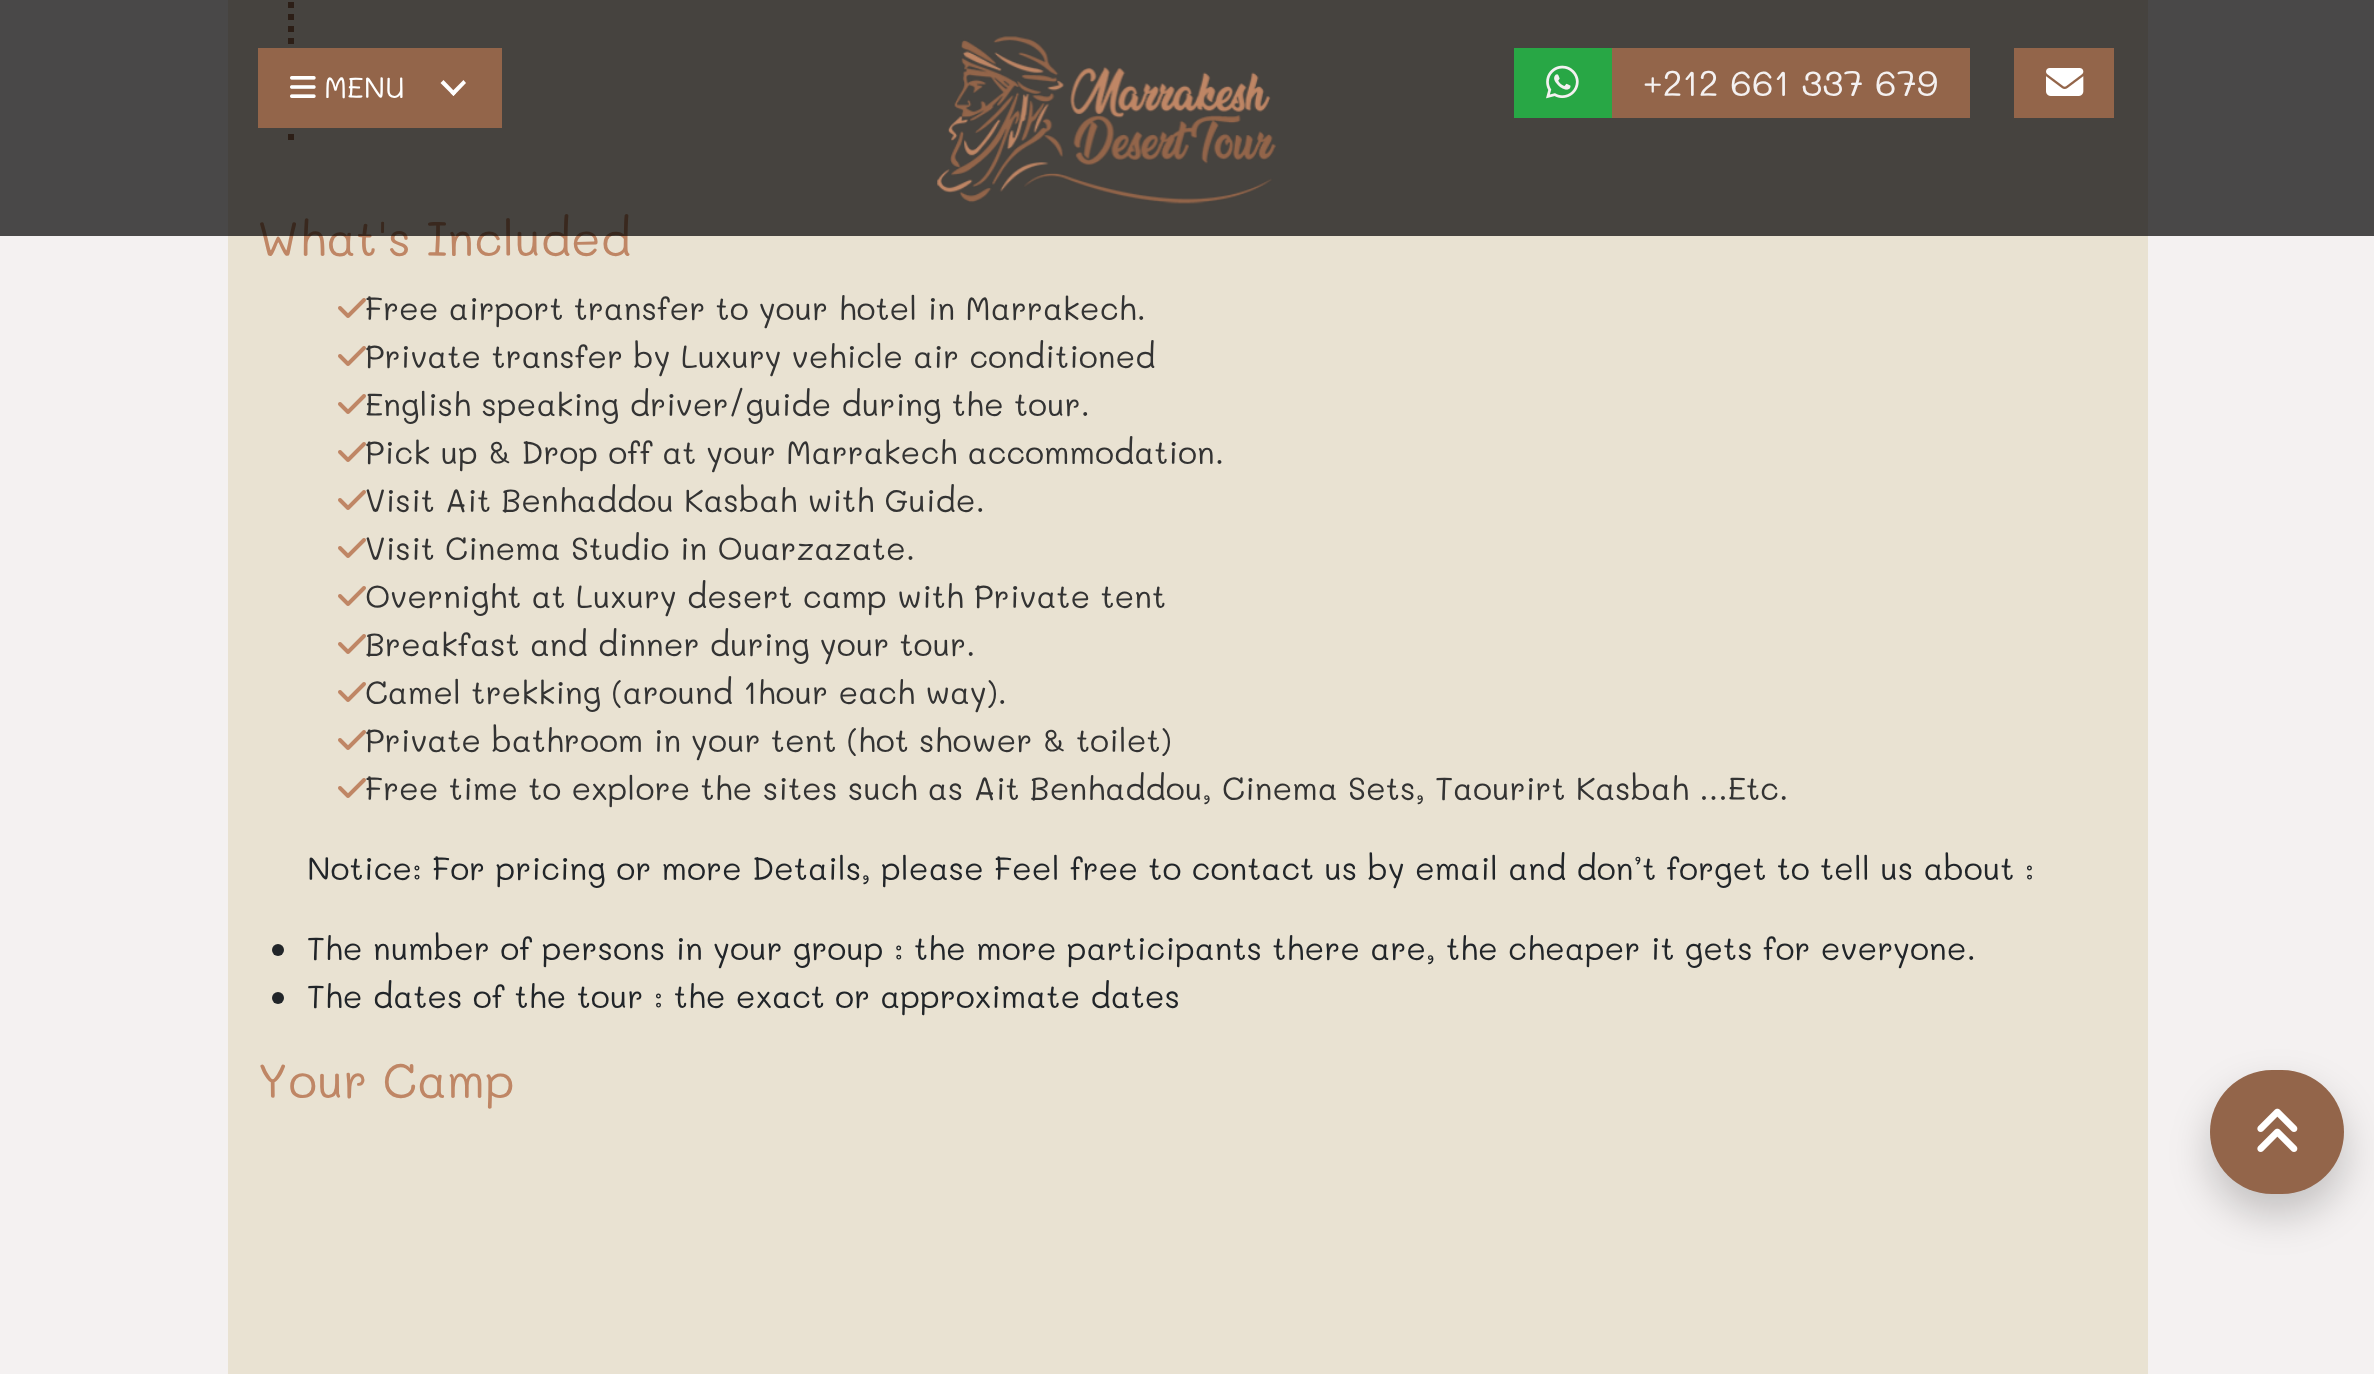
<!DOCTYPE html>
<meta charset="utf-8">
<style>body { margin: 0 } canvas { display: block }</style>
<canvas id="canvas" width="2374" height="1374"></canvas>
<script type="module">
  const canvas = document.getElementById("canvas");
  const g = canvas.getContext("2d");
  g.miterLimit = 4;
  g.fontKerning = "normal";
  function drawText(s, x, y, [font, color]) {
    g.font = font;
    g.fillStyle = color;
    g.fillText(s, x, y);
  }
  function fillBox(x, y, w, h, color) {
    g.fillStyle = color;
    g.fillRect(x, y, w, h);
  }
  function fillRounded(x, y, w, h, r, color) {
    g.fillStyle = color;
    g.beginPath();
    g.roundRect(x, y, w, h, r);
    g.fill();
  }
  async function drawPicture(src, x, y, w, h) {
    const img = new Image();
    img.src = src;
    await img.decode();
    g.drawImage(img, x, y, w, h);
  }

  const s1 = ["48px Mali", "#BF8665"];
  const s2 = ["29px Mali", "#FFFFFF"];
  const s3 = ["36px Mali", "#F4F1F1"];
  const s4 = ["32px Mali", "#333333"];
  const s5 = ["32px Mali", "#212529"];

  fillBox(0, 0, 2374, 1374, "#F4F1F1");
  fillBox(228, 0, 1920, 1374, "#E9E2D2");
  g.beginPath();
  g.moveTo(291, -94);
  g.lineTo(291, 146);
  g.strokeStyle = "#93654A";
  g.lineWidth = 6;
  g.setLineDash([6, 6]);
  g.stroke();
  drawText("What's Included", 257, 256, s1);
  fillBox(0, 0, 2374, 236, "rgba(0, 0, 0, 0.7)");
  fillBox(258, 48, 244, 80, "#93654A");
  await drawPicture("pic1.png", 290, 76, 26, 22);
  drawText("MENU", 324, 98, s2);
  g.beginPath();
  g.moveTo(443.5, 80);
  g.lineTo(456, 93);
  g.lineTo(453.5, 96);
  g.lineTo(440.5, 83);
  g.closePath();
  g.fill();
  g.beginPath();
  g.moveTo(450.5, 93);
  g.lineTo(463.5, 80);
  g.lineTo(466, 83);
  g.lineTo(453.5, 96);
  g.closePath();
  g.fill();
  await drawPicture("pic2.png", 937, 36, 339, 168);
  fillBox(1514, 48, 98, 70, "#28A745");
  await drawPicture("pic3.png", 1546, 65, 33, 34);
  fillBox(1612, 48, 358, 70, "#93654A");
  drawText("+212 661 337 679", 1643, 96, s3);
  fillBox(2014, 48, 100, 70, "#93654A");
  await drawPicture("pic4.png", 2046, 68, 38, 28);
  await drawPicture("pic5.png", 338, 298, 28, 20);
  drawText("Free airport transfer to your hotel in Marrakech.", 365, 320, s4);
  await drawPicture("pic5.png", 338, 346, 28, 20);
  drawText("Private transfer by Luxury vehicle air conditioned", 365, 368, s4);
  await drawPicture("pic5.png", 338, 394, 28, 20);
  drawText("English speaking driver/guide during the tour.", 365, 416, s4);
  await drawPicture("pic5.png", 338, 442, 28, 20);
  drawText("Pick up & Drop off at your Marrakech accommodation.", 365, 464, s4);
  await drawPicture("pic5.png", 338, 490, 28, 20);
  drawText("Visit Ait Benhaddou Kasbah with Guide.", 365, 512, s4);
  await drawPicture("pic5.png", 338, 538, 28, 20);
  drawText("Visit Cinema Studio in Ouarzazate.", 365, 560, s4);
  await drawPicture("pic5.png", 338, 586, 28, 20);
  drawText("Overnight at Luxury desert camp with Private tent", 365, 608, s4);
  await drawPicture("pic5.png", 338, 634, 28, 20);
  drawText("Breakfast and dinner during your tour.", 365, 656, s4);
  await drawPicture("pic5.png", 338, 682, 28, 20);
  drawText("Camel trekking (around 1hour each way).", 365, 704, s4);
  await drawPicture("pic5.png", 338, 730, 28, 20);
  drawText("Private bathroom in your tent (hot shower & toilet)", 365, 752, s4);
  await drawPicture("pic5.png", 338, 778, 28, 20);
  drawText("Free time to explore the sites such as Ait Benhaddou, Cinema Sets, Taourirt Kasbah ...Etc.", 365, 800, s4);
  drawText("Notice: For pricing or more Details, please Feel free to contact us by email and don’t forget to tell us about :", 307, 880, s5);
  g.beginPath();
  g.arc(278, 950, 6, 0, Math.PI * 2);
  g.fill();
  drawText("The number of persons in your group : the more participants there are, the cheaper it gets for everyone.", 307, 960, s5);
  g.beginPath();
  g.arc(278, 998, 6, 0, Math.PI * 2);
  g.fill();
  drawText("The dates of the tour : the exact or approximate dates", 307, 1008, s5);
  drawText("Your Camp", 257, 1098, s1);
  g.fillStyle = "rgba(0, 0, 0, 0.2)";
  g.filter = "blur(20px)";
  g.beginPath();
  g.roundRect(2210, 1090, 134, 124, 62);
  g.fill();
  g.filter = "none";
  fillRounded(2210, 1070, 134, 124, 62, "#93654A");
  await drawPicture("pic6.png", 2257, 1108, 41, 44);
</script>
